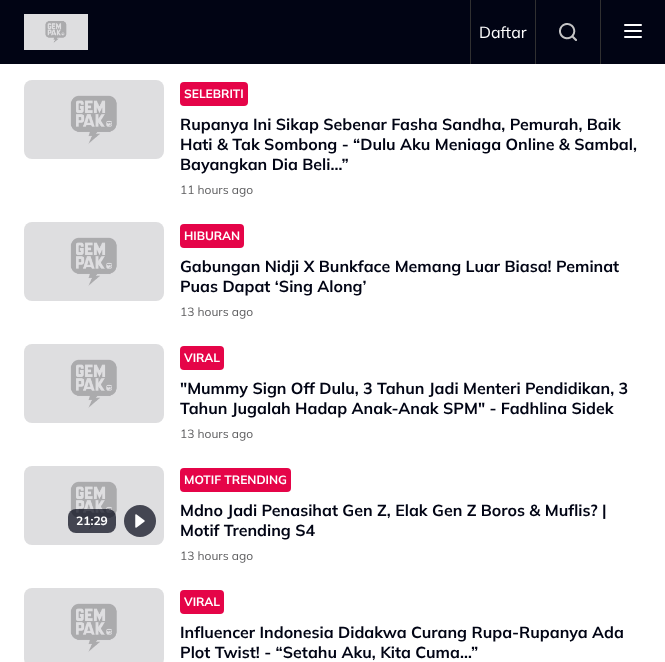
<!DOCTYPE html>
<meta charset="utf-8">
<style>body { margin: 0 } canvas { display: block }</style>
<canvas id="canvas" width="665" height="662"></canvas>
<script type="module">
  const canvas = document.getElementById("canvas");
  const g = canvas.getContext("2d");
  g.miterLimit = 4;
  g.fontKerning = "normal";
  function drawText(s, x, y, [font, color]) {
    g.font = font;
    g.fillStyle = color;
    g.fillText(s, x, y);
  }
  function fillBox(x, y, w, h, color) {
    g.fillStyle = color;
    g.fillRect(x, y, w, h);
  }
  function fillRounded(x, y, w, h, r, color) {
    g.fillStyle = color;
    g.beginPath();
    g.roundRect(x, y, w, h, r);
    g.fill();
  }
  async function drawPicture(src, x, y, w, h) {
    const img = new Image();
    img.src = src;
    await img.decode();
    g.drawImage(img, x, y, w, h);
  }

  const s1 = ["16px Mulish", "#FFFFFF"];
  const s2 = ["bold 12px Mulish", "#FFFFFF"];
  const s3 = ["bold 16px Mulish", "#010414"];
  const s4 = ["12px Mulish", "#606062"];

  fillBox(0, 0, 665, 662, "#FFFFFF");
  fillBox(0, 0, 665, 64, "#010414");
  await drawPicture("pic1.png", 24, 14, 64, 36);
  fillBox(470, 0, 1, 64, "#303031");
  drawText("Daftar", 479, 38, s1);
  fillBox(600, 0, 1, 64, "#303031");
  fillBox(535, 0, 1, 64, "#303031");
  await drawPicture("pic2.png", 559, 23, 18, 18);
  await drawPicture("pic3.png", 624, 24, 18, 14);
  await drawPicture("pic4.png", 24, 80, 140, 79);
  fillRounded(180, 82, 68, 24, 4, "#E50448");
  drawText("SELEBRITI", 184, 98, s2);
  drawText("Rupanya Ini Sikap Sebenar Fasha Sandha, Pemurah, Baik", 180, 130, s3);
  drawText("Hati & Tak Sombong - “Dulu Aku Meniaga Online & Sambal,", 180, 150, s3);
  drawText("Bayangkan Dia Beli…”", 180, 170, s3);
  drawText("11 hours ago", 180, 194, s4);
  await drawPicture("pic4.png", 24, 222, 140, 79);
  fillRounded(180, 224, 64, 24, 4, "#E50448");
  drawText("HIBURAN", 184, 240, s2);
  drawText("Gabungan Nidji X Bunkface Memang Luar Biasa! Peminat", 180, 272, s3);
  drawText("Puas Dapat ‘Sing Along’", 180, 292, s3);
  drawText("13 hours ago", 180, 316, s4);
  await drawPicture("pic4.png", 24, 344, 140, 79);
  fillRounded(180, 346, 44, 24, 4, "#E50448");
  drawText("VIRAL", 184, 362, s2);
  drawText("\"Mummy Sign Off Dulu, 3 Tahun Jadi Menteri Pendidikan, 3", 180, 394, s3);
  drawText("Tahun Jugalah Hadap Anak-Anak SPM\" - Fadhlina Sidek", 180, 414, s3);
  drawText("13 hours ago", 180, 438, s4);
  await drawPicture("pic4.png", 24, 466, 140, 79);
  fillRounded(68, 509, 48, 24, 8, "rgba(1, 4, 20, 0.7)");
  drawText("21:29", 76, 525, s2);
  g.fillStyle = "#444652";
  g.beginPath();
  g.arc(140, 521, 16, 0, Math.PI * 2);
  g.fill();
  await drawPicture("pic5.png", 135, 514, 10, 14);
  fillRounded(180, 468, 111, 24, 4, "#E50448");
  drawText("MOTIF TRENDING", 184, 484, s2);
  drawText("Mdno Jadi Penasihat Gen Z, Elak Gen Z Boros & Muflis? |", 180, 516, s3);
  drawText("Motif Trending S4", 180, 536, s3);
  drawText("13 hours ago", 180, 560, s4);
  await drawPicture("pic6.png", 24, 588, 140, 74);
  fillRounded(180, 590, 44, 24, 4, "#E50448");
  drawText("VIRAL", 184, 606, s2);
  drawText("Influencer Indonesia Didakwa Curang Rupa-Rupanya Ada", 180, 638, s3);
  drawText("Plot Twist! - “Setahu Aku, Kita Cuma…”", 180, 658, s3);
</script>
